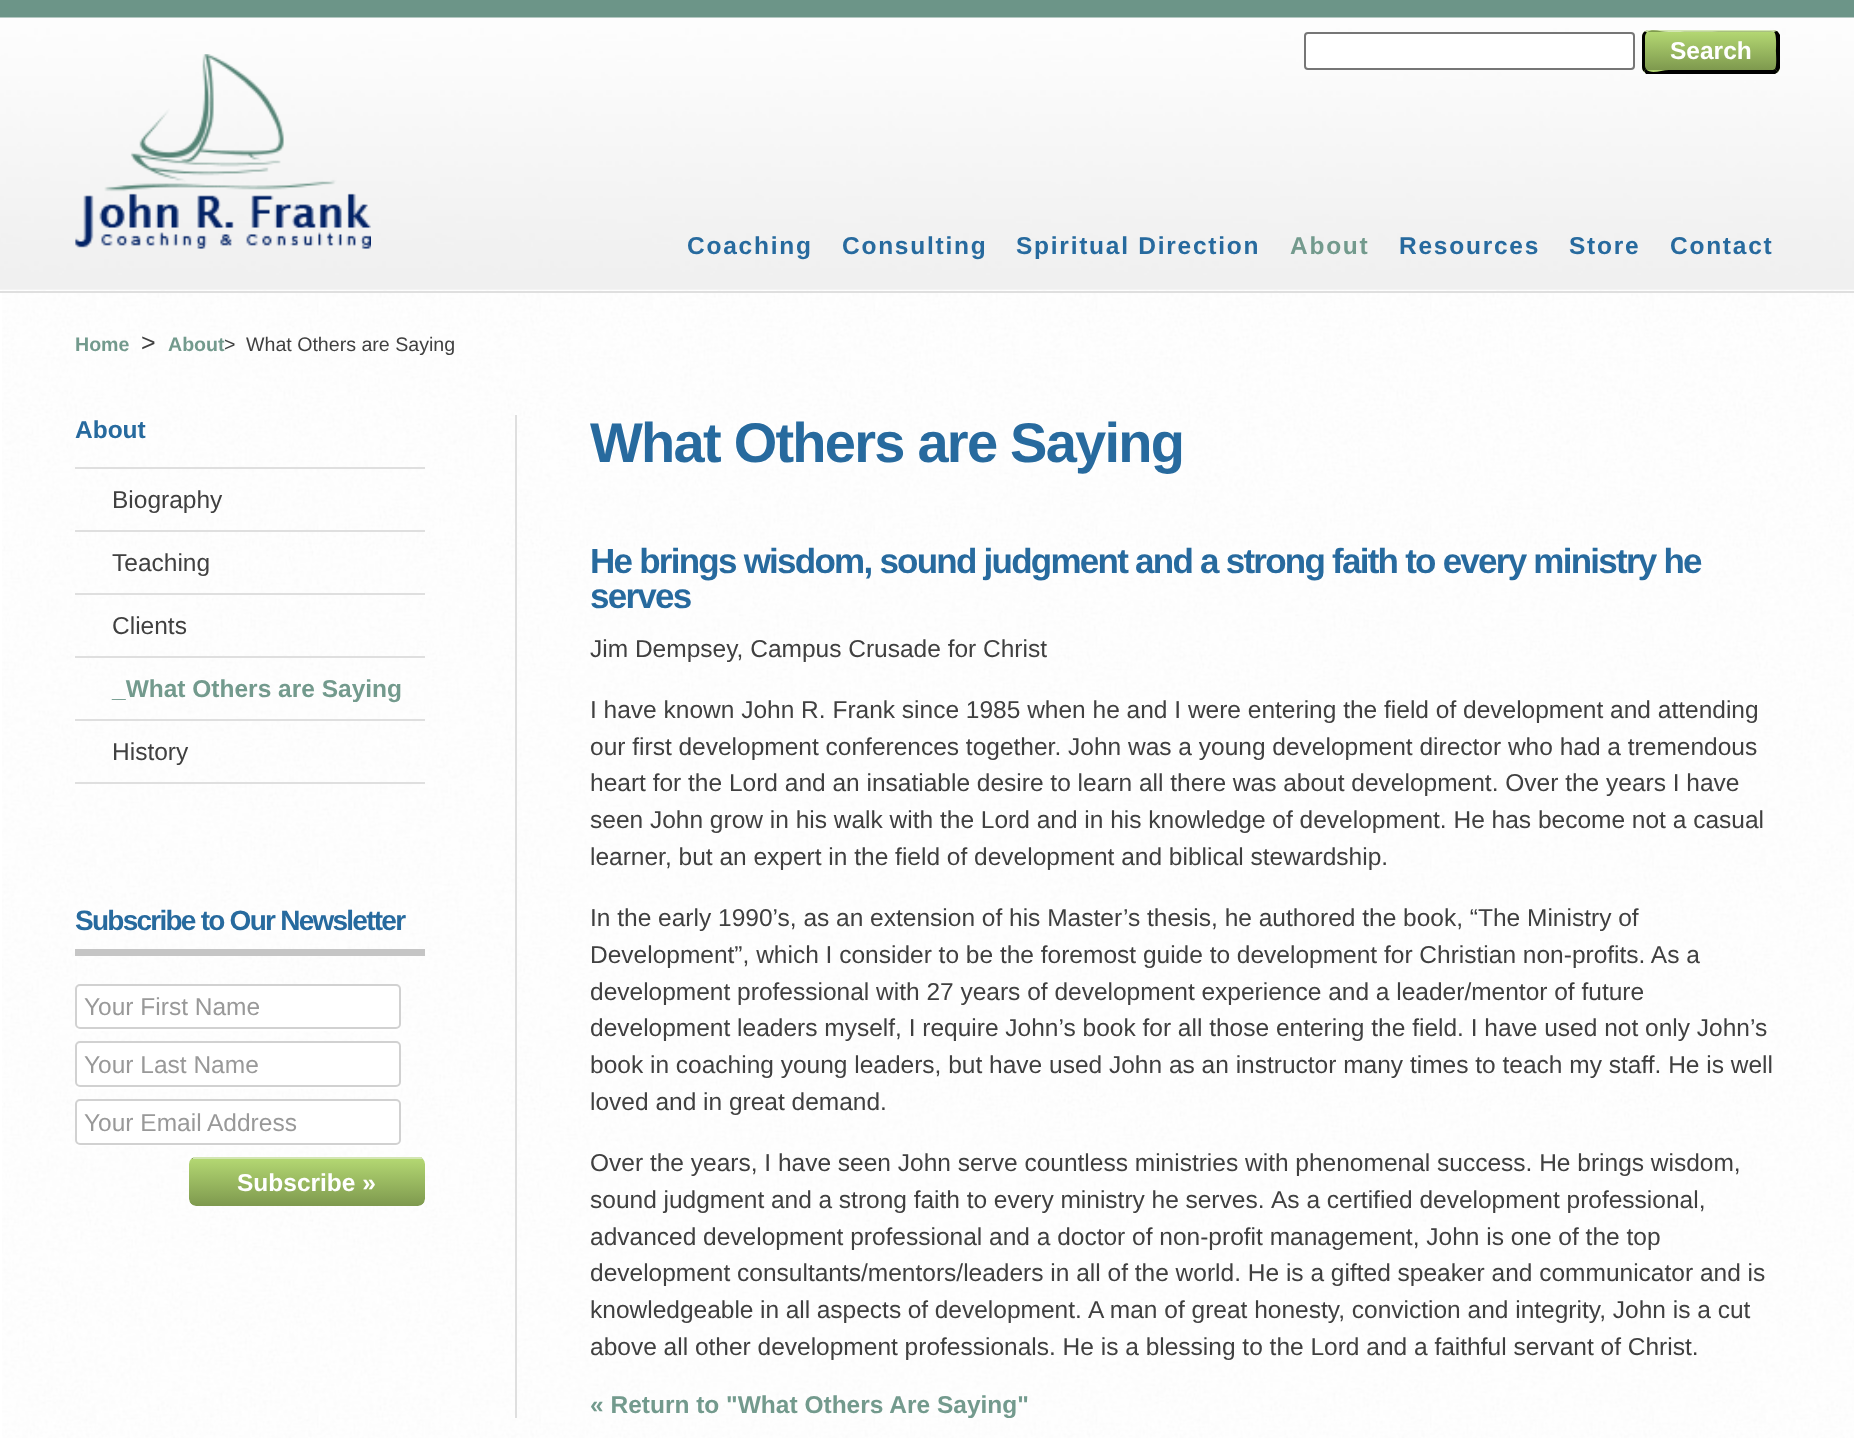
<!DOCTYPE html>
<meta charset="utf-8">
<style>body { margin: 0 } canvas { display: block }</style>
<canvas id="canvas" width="1854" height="1438"></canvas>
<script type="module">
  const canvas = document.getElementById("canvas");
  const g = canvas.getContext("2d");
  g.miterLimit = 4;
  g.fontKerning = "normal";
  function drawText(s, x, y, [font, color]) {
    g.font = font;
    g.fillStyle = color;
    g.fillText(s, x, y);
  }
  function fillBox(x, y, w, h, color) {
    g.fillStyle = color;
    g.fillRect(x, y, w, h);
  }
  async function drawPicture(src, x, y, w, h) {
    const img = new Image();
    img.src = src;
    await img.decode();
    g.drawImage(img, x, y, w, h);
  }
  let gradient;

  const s1 = ["bold 24.5px Liberation Sans", "#FFFFFF"];
  const s2 = ["bold 24.5px Liberation Sans", "#276A9E"];
  const s3 = ["bold 24.5px Liberation Sans", "#739A8D"];
  const s4 = ["bold 19.6px Liberation Sans", "#739A8D"];
  const s5 = ["25px Liberation Sans", "#404040"];
  const s6 = ["19.6px Liberation Sans", "#404040"];
  const s7 = ["24.5px Liberation Sans", "#404040"];
  const s8 = ["bold 28px Liberation Sans", "#276A9E"];
  const s9 = ["24.5px Liberation Sans", "#999999"];
  const s10 = ["bold 56px Liberation Sans", "#276A9E"];
  const s11 = ["bold 35px Liberation Sans", "#276A9E"];

  fillBox(0, 0, 1854, 1438, "#FFFFFF");
  await drawPicture("pic1.png", 2, 290, 1852, 1148);
  fillBox(0, 0, 1854, 18, "#6C9588");
  await drawPicture("pic2.png", 0, 17, 1854, 273);
  fillBox(0, 291, 1854, 2, "#DFDFDF");
  g.fillStyle = "#FFFFFF";
  g.beginPath();
  g.roundRect(1305, 33, 329, 36, 3);
  g.fill();
  g.strokeStyle = "#767676";
  g.lineWidth = 2;
  g.stroke();
  g.save();
  g.beginPath();
  g.roundRect(1642, 30, 138, 44, 7);
  g.clip();
  gradient = g.createLinearGradient(1645, -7, 1645, 32);
  gradient.addColorStop(0, "#B3D772");
  gradient.addColorStop(1, "#7E994E");
  g.fillStyle = gradient;
  g.fillRect(1642, 30, 138, 2);
  gradient = g.createLinearGradient(1645, 32, 1645, 70);
  gradient.addColorStop(0, "#B3D772");
  gradient.addColorStop(1, "#7E994E");
  g.fillStyle = gradient;
  g.fillRect(1642, 32, 138, 38);
  gradient = g.createLinearGradient(1645, 70, 1645, 109);
  gradient.addColorStop(0, "#B3D772");
  gradient.addColorStop(1, "#7E994E");
  g.fillStyle = gradient;
  g.fillRect(1642, 70, 138, 4);
  g.restore();
  g.fillStyle = "#D3E6B3";
  g.beginPath();
  g.moveTo(1648, 30);
  g.lineTo(1645, 31);
  g.lineTo(1647, 32);
  g.bezierCurveTo(1653, 28, 1661, 32, 1669, 32);
  g.bezierCurveTo(1679, 32, 1772, 31, 1774, 32);
  g.lineTo(1777, 31);
  g.lineTo(1773, 30);
  g.closePath();
  g.fill();
  g.fillStyle = "#000000";
  g.beginPath();
  g.moveTo(1777, 31);
  g.bezierCurveTo(1778, 32, 1779, 33, 1780, 35);
  g.lineTo(1780, 68);
  g.lineTo(1778, 72);
  g.lineTo(1775, 69);
  g.bezierCurveTo(1777, 66, 1776, 55, 1776, 52);
  g.bezierCurveTo(1776, 49, 1777, 34, 1774, 32);
  g.closePath();
  g.fill();
  g.beginPath();
  g.moveTo(1646, 74);
  g.lineTo(1644, 71);
  g.lineTo(1646, 69);
  g.bezierCurveTo(1651, 75, 1661, 70, 1669, 70);
  g.lineTo(1773, 70);
  g.lineTo(1775, 69);
  g.lineTo(1778, 72);
  g.lineTo(1775, 74);
  g.closePath();
  g.fill();
  g.beginPath();
  g.moveTo(1644.5, 31.5);
  g.bezierCurveTo(1643, 32.5, 1642, 34.5, 1642, 37);
  g.lineTo(1642, 66);
  g.bezierCurveTo(1642, 68, 1642.5, 70, 1643.5, 71.5);
  g.lineTo(1646, 69);
  g.bezierCurveTo(1645.5, 68, 1645, 67, 1645, 66);
  g.lineTo(1645, 37);
  g.bezierCurveTo(1645, 35, 1646, 33, 1647, 32.5);
  g.closePath();
  g.fill();
  drawText("Search", 1670, 59, s1);
  await drawPicture("pic3.png", 75, 54, 296, 195);
  g.letterSpacing = "1.75px";
  drawText("Coaching", 687, 254, s2);
  drawText("Consulting", 842, 254, s2);
  drawText("Spiritual Direction", 1016, 254, s2);
  drawText("About", 1290, 254, s3);
  drawText("Resources", 1399, 254, s2);
  drawText("Store", 1569, 254, s2);
  drawText("Contact", 1670, 254, s2);
  g.letterSpacing = "0px";
  drawText("Home", 75, 351, s4);
  drawText(">", 141, 351, s5);
  drawText("About", 168, 351, s4);
  drawText(">", 224, 351, s6);
  drawText("What Others are Saying", 246, 351, s6);
  drawText("About", 75, 438, s2);
  fillBox(75, 782, 350, 2, "#DFDFDF");
  fillBox(75, 467, 350, 2, "#DFDFDF");
  drawText("Biography", 112, 508, s7);
  fillBox(75, 530, 350, 2, "#DFDFDF");
  drawText("Teaching", 112, 571, s7);
  fillBox(75, 593, 350, 2, "#DFDFDF");
  drawText("Clients", 112, 634, s7);
  fillBox(75, 656, 350, 2, "#DFDFDF");
  drawText("_What Others are Saying", 112, 697, s3);
  fillBox(75, 719, 350, 2, "#DFDFDF");
  drawText("History", 112, 760, s7);
  fillBox(75, 949, 350, 7, "#C5C5C5");
  g.letterSpacing = "-1.75px";
  drawText("Subscribe to Our Newsletter", 75, 930, s8);
  g.save();
  g.beginPath();
  g.rect(75, 858, 350, 348);
  g.clip();
  g.fillStyle = "#FFFFFF";
  g.beginPath();
  g.moveTo(75, 988);
  g.lineTo(75, 1026);
  g.bezierCurveTo(75, 1029, 77, 1031, 80, 1031);
  g.lineTo(396, 1031);
  g.bezierCurveTo(399, 1031, 401, 1029, 401, 1026);
  g.lineTo(401, 988);
  g.lineTo(401, 1012);
  g.bezierCurveTo(401, 1016, 403, 1029, 396, 1029);
  g.lineTo(80, 1029);
  g.bezierCurveTo(73, 1029, 75, 1016, 75, 1012);
  g.closePath();
  g.fill();
  g.restore();
  g.fillStyle = "#FFFFFF";
  g.beginPath();
  g.roundRect(76, 985, 324, 43, 4);
  g.fill();
  g.strokeStyle = "#D1D1D1";
  g.stroke();
  g.letterSpacing = "0px";
  drawText("Your First Name", 84, 1015, s9);
  g.save();
  g.beginPath();
  g.rect(75, 858, 350, 348);
  g.clip();
  g.fillStyle = "#FFFFFF";
  g.beginPath();
  g.moveTo(75, 1046);
  g.lineTo(75, 1084);
  g.bezierCurveTo(75, 1087, 77, 1089, 80, 1089);
  g.lineTo(396, 1089);
  g.bezierCurveTo(399, 1089, 401, 1087, 401, 1084);
  g.lineTo(401, 1046);
  g.lineTo(401, 1070);
  g.bezierCurveTo(401, 1074, 403, 1087, 396, 1087);
  g.lineTo(80, 1087);
  g.bezierCurveTo(73, 1087, 75, 1074, 75, 1070);
  g.closePath();
  g.fill();
  g.restore();
  g.fillStyle = "#FFFFFF";
  g.beginPath();
  g.roundRect(76, 1042, 324, 44, 4);
  g.fill();
  g.stroke();
  drawText("Your Last Name", 84, 1073, s9);
  g.fillStyle = "#FFFFFF";
  g.beginPath();
  g.moveTo(75, 1104);
  g.lineTo(75, 1141);
  g.bezierCurveTo(75, 1144, 77, 1146, 80, 1146);
  g.lineTo(396, 1146);
  g.bezierCurveTo(399, 1146, 401, 1144, 401, 1141);
  g.lineTo(401, 1104);
  g.lineTo(401, 1139);
  g.bezierCurveTo(401, 1142, 398, 1144, 396, 1144);
  g.lineTo(80, 1144);
  g.bezierCurveTo(78, 1144, 75, 1142, 75, 1139);
  g.closePath();
  g.fill();
  g.beginPath();
  g.roundRect(76, 1100, 324, 44, 4);
  g.fill();
  g.stroke();
  drawText("Your Email Address", 84, 1131, s9);
  g.save();
  g.beginPath();
  g.roundRect(189, 1157, 236, 49, 7);
  g.clip();
  gradient = g.createLinearGradient(189, 1111, 189, 1159);
  gradient.addColorStop(0, "#B3D772");
  gradient.addColorStop(1, "#7E994E");
  g.fillStyle = gradient;
  g.fillRect(189, 1157, 236, 2);
  gradient = g.createLinearGradient(189, 1159, 189, 1206);
  gradient.addColorStop(0, "#B3D772");
  gradient.addColorStop(1, "#7E994E");
  g.fillStyle = gradient;
  g.beginPath();
  g.roundRect(189, 1159, 236, 47, [0, 0, 7, 7]);
  g.fill();
  g.restore();
  fillBox(193, 1157, 229, 2, "#D3E6B3");
  drawText("Subscribe »", 237, 1191, s1);
  fillBox(515, 415, 2, 1003, "#DFDFDF");
  g.letterSpacing = "-1.75px";
  drawText("What Others are Saying", 590, 462, s10);
  drawText("He brings wisdom, sound judgment and a strong faith to every ministry he", 590, 573, s11);
  drawText("serves", 590, 608, s11);
  g.letterSpacing = "0px";
  drawText("Jim Dempsey, Campus Crusade for Christ", 590, 657, s7);
  drawText("I have known John R. Frank since 1985 when he and I were entering the field of development and attending", 590, 718, s7);
  drawText("our first development conferences together. John was a young development director who had a tremendous", 590, 755, s7);
  drawText("heart for the Lord and an insatiable desire to learn all there was about development. Over the years I have", 590, 791, s7);
  drawText("seen John grow in his walk with the Lord and in his knowledge of development. He has become not a casual", 590, 828, s7);
  drawText("learner, but an expert in the field of development and biblical stewardship.", 590, 865, s7);
  drawText("In the early 1990’s, as an extension of his Master’s thesis, he authored the book, “The Ministry of", 590, 926, s7);
  drawText("Development”, which I consider to be the foremost guide to development for Christian non-profits. As a", 590, 963, s7);
  drawText("development professional with 27 years of development experience and a leader/mentor of future", 590, 1000, s7);
  drawText("development leaders myself, I require John’s book for all those entering the field. I have used not only John’s", 590, 1036, s7);
  drawText("book in coaching young leaders, but have used John as an instructor many times to teach my staff. He is well", 590, 1073, s7);
  drawText("loved and in great demand.", 590, 1110, s7);
  drawText("Over the years, I have seen John serve countless ministries with phenomenal success. He brings wisdom,", 590, 1171, s7);
  g.wordSpacing = "-0.1px";
  drawText("sound judgment and a strong faith to every ministry he serves.", 590, 1208, s7);
  g.wordSpacing = "0px";
  drawText("As a certified development professional,", 1271, 1208, s7);
  drawText("advanced development professional and a doctor of non-profit management, John is one of the top", 590, 1245, s7);
  drawText("development consultants/mentors/leaders in all of the world. He is a gifted speaker and communicator and is", 590, 1281, s7);
  g.wordSpacing = "-0.25px";
  drawText("knowledgeable in all aspects of development.", 590, 1318, s7);
  g.wordSpacing = "0px";
  drawText("A man of great honesty, conviction and integrity, John is a cut", 1088, 1318, s7);
  drawText("above all other development professionals. He is a blessing to the Lord and a faithful servant of Christ.", 590, 1355, s7);
  g.save();
  g.beginPath();
  g.rect(75, 329, 1705, 1089);
  g.clip();
  drawText("« Return to \"What Others Are Saying\"", 590, 1413, s3);
  g.restore();
</script>
